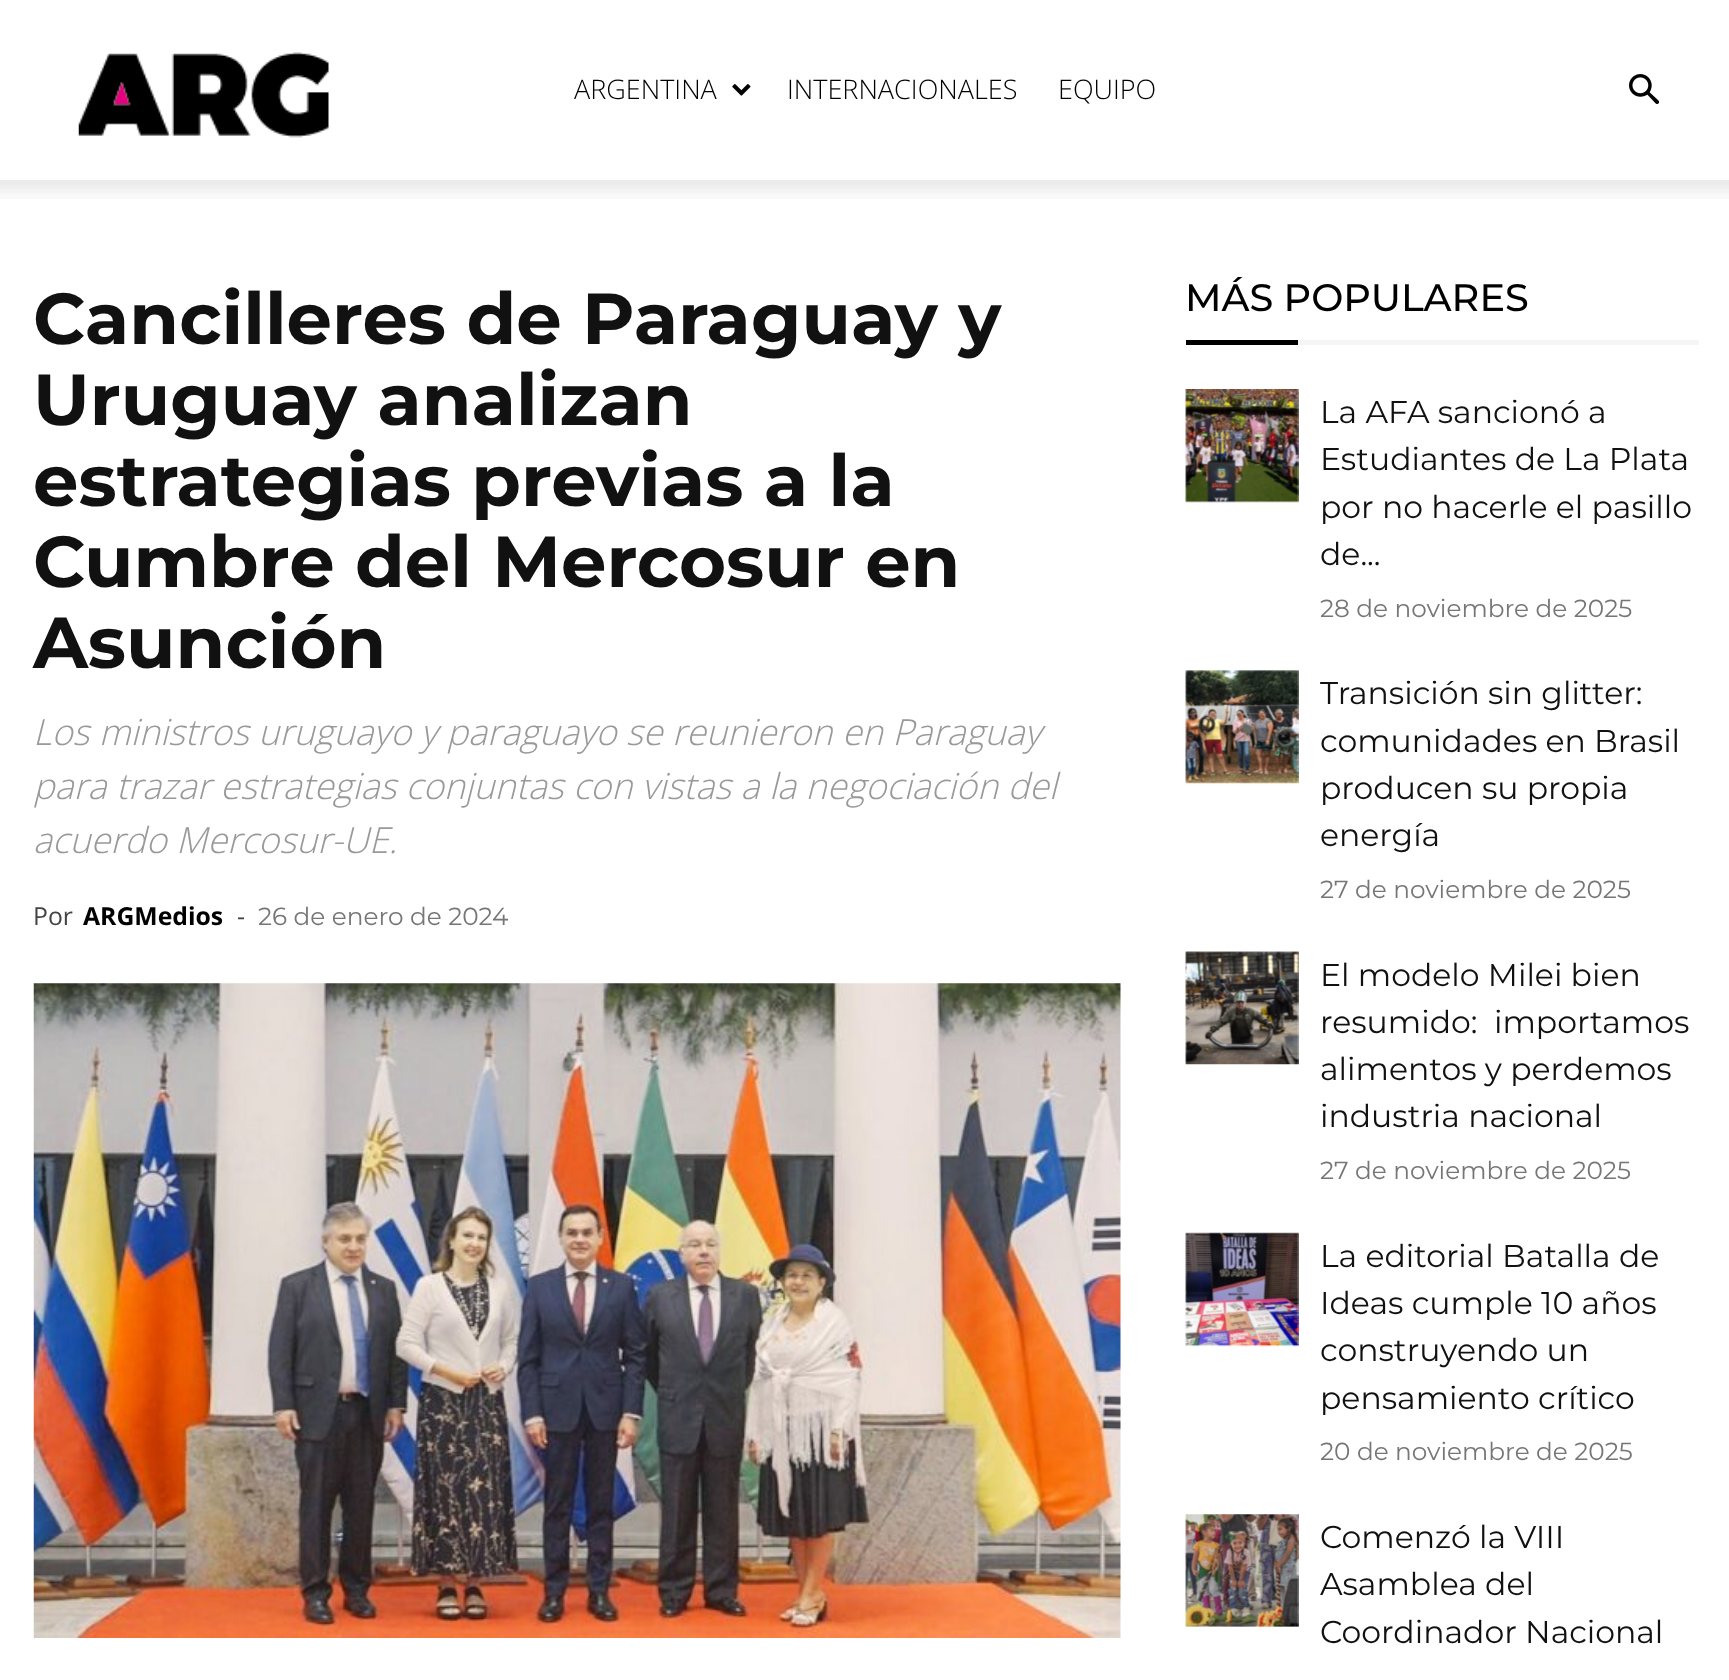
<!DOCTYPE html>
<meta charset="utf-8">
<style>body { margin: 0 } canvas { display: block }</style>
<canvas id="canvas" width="1729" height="1680"></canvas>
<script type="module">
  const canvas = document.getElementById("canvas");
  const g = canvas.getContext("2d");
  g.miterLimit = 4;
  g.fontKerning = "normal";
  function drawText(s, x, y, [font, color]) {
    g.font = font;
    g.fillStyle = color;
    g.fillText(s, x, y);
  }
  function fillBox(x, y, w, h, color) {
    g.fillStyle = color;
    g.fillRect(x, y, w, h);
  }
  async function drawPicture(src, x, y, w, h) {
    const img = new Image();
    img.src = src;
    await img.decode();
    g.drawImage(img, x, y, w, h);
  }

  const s1 = ["300 27px Open Sans", "#000000"];
  const s2 = ["bold 72px Montserrat", "#111111"];
  const s3 = ["italic 300 36px Open Sans", "#999999"];
  const s4 = ["24.75px Open Sans", "#444444"];
  const s5 = ["bold 24.75px Open Sans", "#000000"];
  const s6 = ["24.75px Montserrat", "#767676"];
  const s7 = ["500 38.25px Montserrat", "#000000"];
  const s8 = ["31.5px Montserrat", "#111111"];

  fillBox(0, 0, 1729, 1680, "#FFFFFF");
  await drawPicture("pic1.png", 78, 52, 251, 86);
  drawText("ARGENTINA", 574, 99, s1);
  await drawPicture("pic2.png", 732, 84, 19, 12);
  drawText("INTERNACIONALES", 787, 99, s1);
  drawText("EQUIPO", 1058, 99, s1);
  await drawPicture("pic3.png", 1629, 74, 31, 30);
  await drawPicture("pic4.png", 0, 180, 1729, 19);
  drawText("Cancilleres de Paraguay y", 33, 344, s2);
  drawText("Uruguay analizan", 33, 425, s2);
  drawText("estrategias previas a la", 33, 506, s2);
  drawText("Cumbre del Mercosur en", 33, 587, s2);
  drawText("Asunción", 33, 668, s2);
  drawText("Los ministros uruguayo y paraguayo se reunieron en Paraguay", 33, 745, s3);
  drawText("para trazar estrategias conjuntas con vistas a la negociación del", 33, 799, s3);
  drawText("acuerdo Mercosur-UE.", 33, 853, s3);
  drawText("Por", 33, 925, s4);
  drawText("ARGMedios", 83, 925, s5);
  drawText("-", 237, 925, s4);
  drawText("26 de enero de 2024", 258, 925, s6);
  await drawPicture("pic5.png", 33, 983, 1088, 655);
  drawText("MÁS POPULARES", 1185, 311, s7);
  fillBox(1186, 340, 112, 5, "#000000");
  fillBox(1298, 340, 401, 5, "#F5F5F5");
  await drawPicture("pic6.png", 1185, 389, 114, 114);
  drawText("La AFA sancionó a", 1320, 423, s8);
  drawText("Estudiantes de La Plata", 1320, 470, s8);
  drawText("por no hacerle el pasillo", 1320, 518, s8);
  drawText("de...", 1320, 565, s8);
  drawText("28 de noviembre de 2025", 1320, 617, s6);
  await drawPicture("pic7.png", 1185, 670, 114, 114);
  drawText("Transición sin glitter:", 1320, 704, s8);
  drawText("comunidades en Brasil", 1320, 752, s8);
  drawText("producen su propia", 1320, 799, s8);
  drawText("energía", 1320, 846, s8);
  drawText("27 de noviembre de 2025", 1320, 898, s6);
  await drawPicture("pic8.png", 1185, 951, 114, 114);
  drawText("El modelo Milei bien", 1320, 986, s8);
  drawText("resumido:  importamos", 1320, 1033, s8);
  drawText("alimentos y perdemos", 1320, 1080, s8);
  drawText("industria nacional", 1320, 1127, s8);
  drawText("27 de noviembre de 2025", 1320, 1179, s6);
  await drawPicture("pic9.png", 1185, 1232, 114, 115);
  drawText("La editorial Batalla de", 1320, 1267, s8);
  drawText("Ideas cumple 10 años", 1320, 1314, s8);
  drawText("construyendo un", 1320, 1361, s8);
  drawText("pensamiento crítico", 1320, 1409, s8);
  drawText("20 de noviembre de 2025", 1320, 1460, s6);
  await drawPicture("pic10.png", 1185, 1514, 114, 113);
  drawText("Comenzó la VIII", 1320, 1548, s8);
  drawText("Asamblea del", 1320, 1595, s8);
  drawText("Coordinador Nacional", 1320, 1643, s8);
</script>
